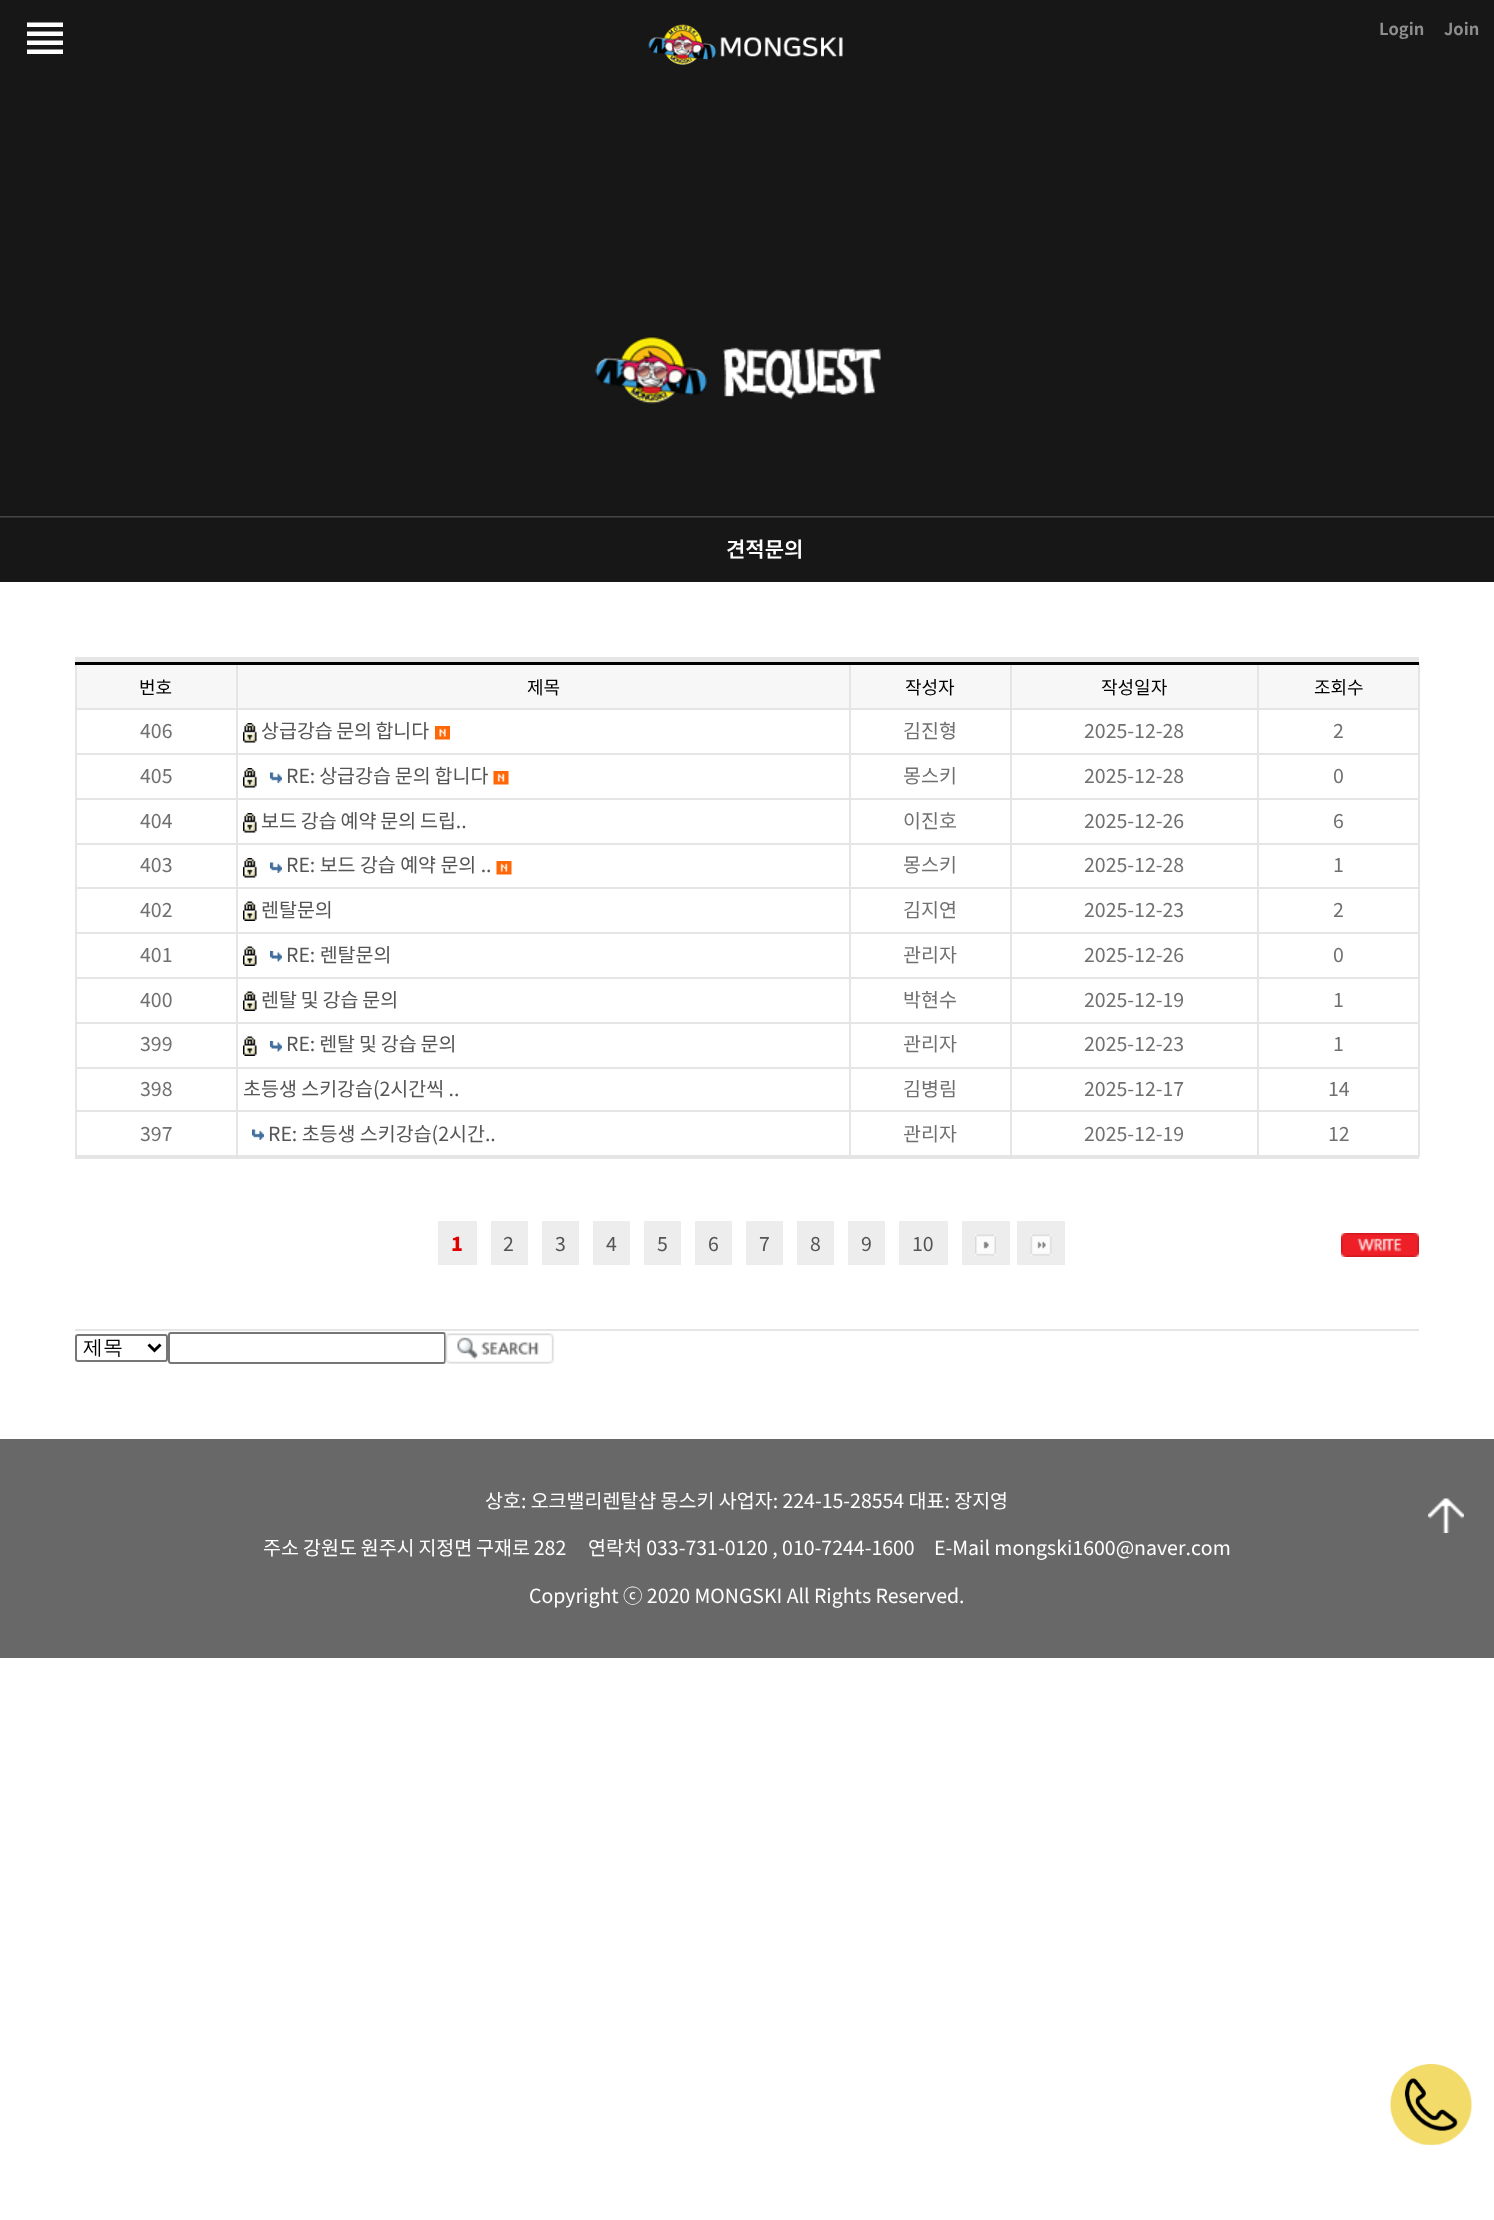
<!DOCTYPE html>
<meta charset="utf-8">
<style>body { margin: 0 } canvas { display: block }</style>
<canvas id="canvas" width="1494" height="2220"></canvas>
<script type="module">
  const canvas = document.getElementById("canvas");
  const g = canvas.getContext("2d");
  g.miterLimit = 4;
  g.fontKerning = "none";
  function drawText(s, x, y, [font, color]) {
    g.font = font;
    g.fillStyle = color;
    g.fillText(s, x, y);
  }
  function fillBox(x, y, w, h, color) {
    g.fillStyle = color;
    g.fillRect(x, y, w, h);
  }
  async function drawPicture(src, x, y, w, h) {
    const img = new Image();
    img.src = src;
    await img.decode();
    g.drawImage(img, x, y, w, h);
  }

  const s1 = ["bold 16.5px Noto Sans KR", "#8E8E8E"];
  const s2 = ["600 21px Noto Sans KR", "#FFFFFF"];
  const s3 = ["18px Noto Sans KR", "#000000"];
  const s4 = ["19.5px Noto Sans KR", "#707070"];
  const s5 = ["19.5px Noto Sans KR", "#555555"];
  const s6 = ["900 19.5px Noto Sans KR", "#E10000"];
  const s7 = ["500 20px WenQuanYi Zen Hei", "#000000"];
  const s8 = ["19.5px Noto Sans KR", "#FFFFFF"];

  fillBox(0, 0, 1494, 2220, "#FFFFFF");
  fillBox(0, 0, 1494, 90, "#171717");
  await drawPicture("pic1.png", 27, 22, 36, 32);
  await drawPicture("pic2.png", 648, 24, 195, 41);
  drawText("Login", 1379, 35, s1);
  drawText("Join", 1444, 35, s1);
  fillBox(0, 90, 1494, 492, "#171717");
  await drawPicture("pic3.png", 595, 336, 286, 68);
  await drawPicture("pic4.png", 0, 516, 1494, 2);
  drawText("견적문의", 726, 557, s2);
  fillBox(75, 657, 1344, 5, "#E5E5E5");
  fillBox(75, 662, 2, 495, "#E5E5E5");
  fillBox(77, 665, 1341, 43, "#F7F7F7");
  fillBox(1418, 663, 2, 494, "#E5E5E5");
  fillBox(1257, 1155, 162, 2, "#E5E5E5");
  fillBox(1257, 1110, 2, 47, "#E5E5E5");
  fillBox(1257, 1110, 162, 2, "#E5E5E5");
  fillBox(1257, 1067, 2, 45, "#E5E5E5");
  fillBox(1257, 1067, 162, 2, "#E5E5E5");
  fillBox(1257, 1022, 2, 46, "#E5E5E5");
  fillBox(1257, 1022, 162, 2, "#E5E5E5");
  fillBox(1257, 977, 2, 46, "#E5E5E5");
  fillBox(1257, 977, 162, 2, "#E5E5E5");
  fillBox(1257, 932, 2, 46, "#E5E5E5");
  fillBox(1257, 932, 162, 2, "#E5E5E5");
  fillBox(1257, 887, 2, 46, "#E5E5E5");
  fillBox(1257, 887, 162, 2, "#E5E5E5");
  fillBox(1257, 843, 2, 45, "#E5E5E5");
  fillBox(1257, 843, 162, 2, "#E5E5E5");
  fillBox(1257, 798, 2, 47, "#E5E5E5");
  fillBox(1257, 798, 162, 2, "#E5E5E5");
  fillBox(1257, 753, 2, 47, "#E5E5E5");
  fillBox(1257, 753, 162, 2, "#E5E5E5");
  fillBox(1257, 708, 2, 47, "#E5E5E5");
  fillBox(1257, 708, 162, 2, "#E5E5E5");
  fillBox(1257, 663, 2, 47, "#E5E5E5");
  fillBox(1010, 1155, 249, 2, "#E5E5E5");
  fillBox(1010, 1110, 2, 47, "#E5E5E5");
  fillBox(1010, 1110, 249, 2, "#E5E5E5");
  fillBox(1010, 1067, 2, 45, "#E5E5E5");
  fillBox(1010, 1067, 249, 2, "#E5E5E5");
  fillBox(1010, 1022, 2, 46, "#E5E5E5");
  fillBox(1010, 1022, 249, 2, "#E5E5E5");
  fillBox(1010, 977, 2, 46, "#E5E5E5");
  fillBox(1010, 977, 249, 2, "#E5E5E5");
  fillBox(1010, 932, 2, 46, "#E5E5E5");
  fillBox(1010, 932, 249, 2, "#E5E5E5");
  fillBox(1010, 887, 2, 46, "#E5E5E5");
  fillBox(1010, 887, 249, 2, "#E5E5E5");
  fillBox(1010, 843, 2, 45, "#E5E5E5");
  fillBox(1010, 843, 249, 2, "#E5E5E5");
  fillBox(1010, 798, 2, 47, "#E5E5E5");
  fillBox(1010, 798, 249, 2, "#E5E5E5");
  fillBox(1010, 753, 2, 47, "#E5E5E5");
  fillBox(1010, 753, 249, 2, "#E5E5E5");
  fillBox(1010, 708, 2, 47, "#E5E5E5");
  fillBox(1010, 708, 249, 2, "#E5E5E5");
  fillBox(1010, 663, 2, 47, "#E5E5E5");
  fillBox(849, 1155, 162, 2, "#E5E5E5");
  fillBox(849, 1110, 2, 47, "#E5E5E5");
  fillBox(849, 1110, 162, 2, "#E5E5E5");
  fillBox(849, 1067, 2, 45, "#E5E5E5");
  fillBox(849, 1067, 162, 2, "#E5E5E5");
  fillBox(849, 1022, 2, 46, "#E5E5E5");
  fillBox(849, 1022, 162, 2, "#E5E5E5");
  fillBox(849, 977, 2, 46, "#E5E5E5");
  fillBox(849, 977, 162, 2, "#E5E5E5");
  fillBox(849, 932, 2, 46, "#E5E5E5");
  fillBox(849, 932, 162, 2, "#E5E5E5");
  fillBox(849, 887, 2, 46, "#E5E5E5");
  fillBox(849, 887, 162, 2, "#E5E5E5");
  fillBox(849, 843, 2, 45, "#E5E5E5");
  fillBox(849, 843, 162, 2, "#E5E5E5");
  fillBox(849, 798, 2, 47, "#E5E5E5");
  fillBox(849, 798, 162, 2, "#E5E5E5");
  fillBox(849, 753, 2, 47, "#E5E5E5");
  fillBox(849, 753, 162, 2, "#E5E5E5");
  fillBox(849, 708, 2, 47, "#E5E5E5");
  fillBox(849, 708, 162, 2, "#E5E5E5");
  fillBox(849, 663, 2, 47, "#E5E5E5");
  fillBox(236, 1155, 615, 2, "#E5E5E5");
  fillBox(236, 1110, 2, 47, "#E5E5E5");
  fillBox(236, 1110, 615, 2, "#E5E5E5");
  fillBox(236, 1067, 2, 45, "#E5E5E5");
  fillBox(236, 1067, 615, 2, "#E5E5E5");
  fillBox(236, 1022, 2, 46, "#E5E5E5");
  fillBox(236, 1022, 615, 2, "#E5E5E5");
  fillBox(236, 977, 2, 46, "#E5E5E5");
  fillBox(236, 977, 615, 2, "#E5E5E5");
  fillBox(236, 932, 2, 46, "#E5E5E5");
  fillBox(236, 932, 615, 2, "#E5E5E5");
  fillBox(236, 887, 2, 46, "#E5E5E5");
  fillBox(236, 887, 615, 2, "#E5E5E5");
  fillBox(236, 843, 2, 45, "#E5E5E5");
  fillBox(236, 843, 615, 2, "#E5E5E5");
  fillBox(236, 798, 2, 47, "#E5E5E5");
  fillBox(236, 798, 615, 2, "#E5E5E5");
  fillBox(236, 753, 2, 47, "#E5E5E5");
  fillBox(236, 753, 615, 2, "#E5E5E5");
  fillBox(236, 708, 2, 47, "#E5E5E5");
  fillBox(236, 708, 615, 2, "#E5E5E5");
  fillBox(236, 663, 2, 47, "#E5E5E5");
  fillBox(75, 662, 1344, 3, "#000000");
  fillBox(75, 708, 162, 2, "#E5E5E5");
  drawText("번호", 139, 694, s3);
  drawText("제목", 527, 694, s3);
  drawText("작성자", 905, 694, s3);
  drawText("작성일자", 1101, 694, s3);
  drawText("조회수", 1314, 694, s3);
  fillBox(75, 753, 162, 2, "#E5E5E5");
  drawText("406", 140, 738, s4);
  await drawPicture("pic5.png", 243, 723, 14, 20);
  g.wordSpacing = "-1px";
  drawText("상급강습 문의 합니다", 261, 738, s5);
  await drawPicture("pic6.png", 435, 726, 15, 14);
  g.wordSpacing = "0px";
  drawText("김진형", 903, 738, s4);
  drawText("2025-12-28", 1084, 738, s4);
  drawText("2", 1333, 738, s4);
  fillBox(75, 798, 162, 2, "#E5E5E5");
  drawText("405", 140, 783, s4);
  await drawPicture("pic5.png", 243, 768, 14, 20);
  await drawPicture("pic7.png", 270, 772, 12, 11);
  g.wordSpacing = "-0.5px";
  drawText("RE: 상급강습 문의 합니다", 286, 783, s5);
  await drawPicture("pic8.png", 493, 771, 16, 14);
  g.wordSpacing = "0px";
  drawText("몽스키", 903, 783, s4);
  drawText("2025-12-28", 1084, 783, s4);
  drawText("0", 1333, 783, s4);
  fillBox(75, 843, 162, 2, "#E5E5E5");
  drawText("404", 140, 828, s4);
  await drawPicture("pic5.png", 243, 813, 14, 20);
  g.wordSpacing = "-0.5px";
  drawText("보드 강습 예약 문의 드립..", 261, 828, s5);
  g.wordSpacing = "0px";
  drawText("이진호", 903, 828, s4);
  drawText("2025-12-26", 1084, 828, s4);
  drawText("6", 1333, 828, s4);
  fillBox(75, 887, 162, 2, "#E5E5E5");
  drawText("403", 140, 872, s4);
  await drawPicture("pic5.png", 243, 858, 14, 20);
  await drawPicture("pic7.png", 270, 862, 12, 11);
  drawText("RE: 보드 강습 예약 문의 ..", 286, 872, s5);
  await drawPicture("pic8.png", 496, 861, 16, 14);
  drawText("몽스키", 903, 872, s4);
  drawText("2025-12-28", 1084, 872, s4);
  drawText("1", 1333, 872, s4);
  fillBox(75, 932, 162, 2, "#E5E5E5");
  drawText("402", 140, 917, s4);
  await drawPicture("pic9.png", 243, 901, 14, 20);
  drawText("렌탈문의", 261, 917, s5);
  drawText("김지연", 903, 917, s4);
  drawText("2025-12-23", 1084, 917, s4);
  drawText("2", 1333, 917, s4);
  fillBox(75, 977, 162, 2, "#E5E5E5");
  drawText("401", 140, 962, s4);
  await drawPicture("pic9.png", 243, 946, 14, 20);
  await drawPicture("pic10.png", 270, 951, 12, 11);
  drawText("RE: 렌탈문의", 286, 962, s5);
  drawText("관리자", 903, 962, s4);
  drawText("2025-12-26", 1084, 962, s4);
  drawText("0", 1333, 962, s4);
  fillBox(75, 1022, 162, 2, "#E5E5E5");
  drawText("400", 140, 1007, s4);
  await drawPicture("pic9.png", 243, 991, 14, 20);
  g.wordSpacing = "-0.5px";
  drawText("렌탈 및 강습 문의", 261, 1007, s5);
  g.wordSpacing = "0px";
  drawText("박현수", 903, 1007, s4);
  drawText("2025-12-19", 1084, 1007, s4);
  drawText("1", 1333, 1007, s4);
  fillBox(75, 1067, 162, 2, "#E5E5E5");
  drawText("399", 140, 1051, s4);
  await drawPicture("pic9.png", 243, 1036, 14, 20);
  await drawPicture("pic10.png", 270, 1041, 12, 11);
  g.wordSpacing = "-0.5px";
  drawText("RE: 렌탈 및 강습 문의", 286, 1051, s5);
  g.wordSpacing = "0px";
  drawText("관리자", 903, 1051, s4);
  drawText("2025-12-23", 1084, 1051, s4);
  drawText("1", 1333, 1051, s4);
  fillBox(75, 1110, 162, 2, "#E5E5E5");
  drawText("398", 140, 1096, s4);
  drawText("초등생 스키강습(2시간씩 ..", 243, 1096, s5);
  drawText("김병림", 903, 1096, s4);
  drawText("2025-12-17", 1084, 1096, s4);
  drawText("14", 1328, 1096, s4);
  fillBox(75, 1155, 162, 2, "#E5E5E5");
  drawText("397", 140, 1141, s4);
  await drawPicture("pic11.png", 252, 1129, 12, 11);
  drawText("RE: 초등생 스키강습(2시간..", 268, 1141, s5);
  drawText("관리자", 903, 1141, s4);
  drawText("2025-12-19", 1084, 1141, s4);
  drawText("12", 1328, 1141, s4);
  fillBox(75, 1157, 1344, 2, "#E5E5E5");
  fillBox(962, 1221, 48, 44, "#EDEDED");
  fillBox(1017, 1221, 48, 44, "#EDEDED");
  fillBox(438, 1221, 39, 44, "#EDEDED");
  drawText("1", 451, 1251, s6);
  fillBox(491, 1221, 37, 44, "#EDEDED");
  drawText("2", 503, 1251, s5);
  fillBox(542, 1221, 37, 44, "#EDEDED");
  drawText("3", 555, 1251, s5);
  fillBox(593, 1221, 37, 44, "#EDEDED");
  drawText("4", 606, 1251, s5);
  fillBox(644, 1221, 37, 44, "#EDEDED");
  drawText("5", 657, 1251, s5);
  fillBox(695, 1221, 37, 44, "#EDEDED");
  drawText("6", 708, 1251, s5);
  fillBox(746, 1221, 37, 44, "#EDEDED");
  drawText("7", 759, 1251, s5);
  fillBox(797, 1221, 37, 44, "#EDEDED");
  drawText("8", 810, 1251, s5);
  fillBox(848, 1221, 37, 44, "#EDEDED");
  drawText("9", 861, 1251, s5);
  fillBox(899, 1221, 49, 44, "#EDEDED");
  drawText("10", 912, 1251, s5);
  await drawPicture("pic12.png", 975, 1234, 21, 22);
  await drawPicture("pic13.png", 1030, 1234, 22, 22);
  await drawPicture("pic14.png", 1341, 1233, 78, 24);
  fillBox(75, 1329, 1344, 2, "#E5E5E5");
  g.beginPath();
  g.roundRect(76, 1335, 91, 26, 2);
  g.strokeStyle = "#767676";
  g.lineWidth = 2;
  g.stroke();
  g.beginPath();
  g.moveTo(148.5, 1344.5);
  g.lineTo(154.5, 1350.5);
  g.lineTo(160.5, 1344.5);
  g.strokeStyle = "#000000";
  g.lineWidth = 3;
  g.stroke();
  drawText("제목", 83, 1354, s7);
  g.beginPath();
  g.roundRect(169, 1333, 276, 30, 2);
  g.strokeStyle = "#767676";
  g.lineWidth = 2;
  g.stroke();
  await drawPicture("pic15.png", 445, 1333, 109, 31);
  await drawPicture("pic16.png", 1390, 2064, 82, 81);
  fillBox(0, 1439, 1494, 219, "#686868");
  drawText("상호: 오크밸리렌탈샵 몽스키 사업자: 224-15-28554 대표: 장지영", 485, 1508, s8);
  drawText("주소", 263, 1555, s8);
  g.wordSpacing = "-0.5px";
  drawText("강원도 원주시 지정면 구재로 282", 303, 1555, s8);
  g.wordSpacing = "0px";
  drawText("연락처 033-731-0120 , 010-7244-1600", 588, 1555, s8);
  drawText("E-Mail mongski1600@naver.com", 934, 1555, s8);
  drawText("Copyright ⓒ 2020 MONGSKI All Rights Reserved.", 529, 1603, s8);
  await drawPicture("pic17.png", 1428, 1498, 36, 35);
</script>
